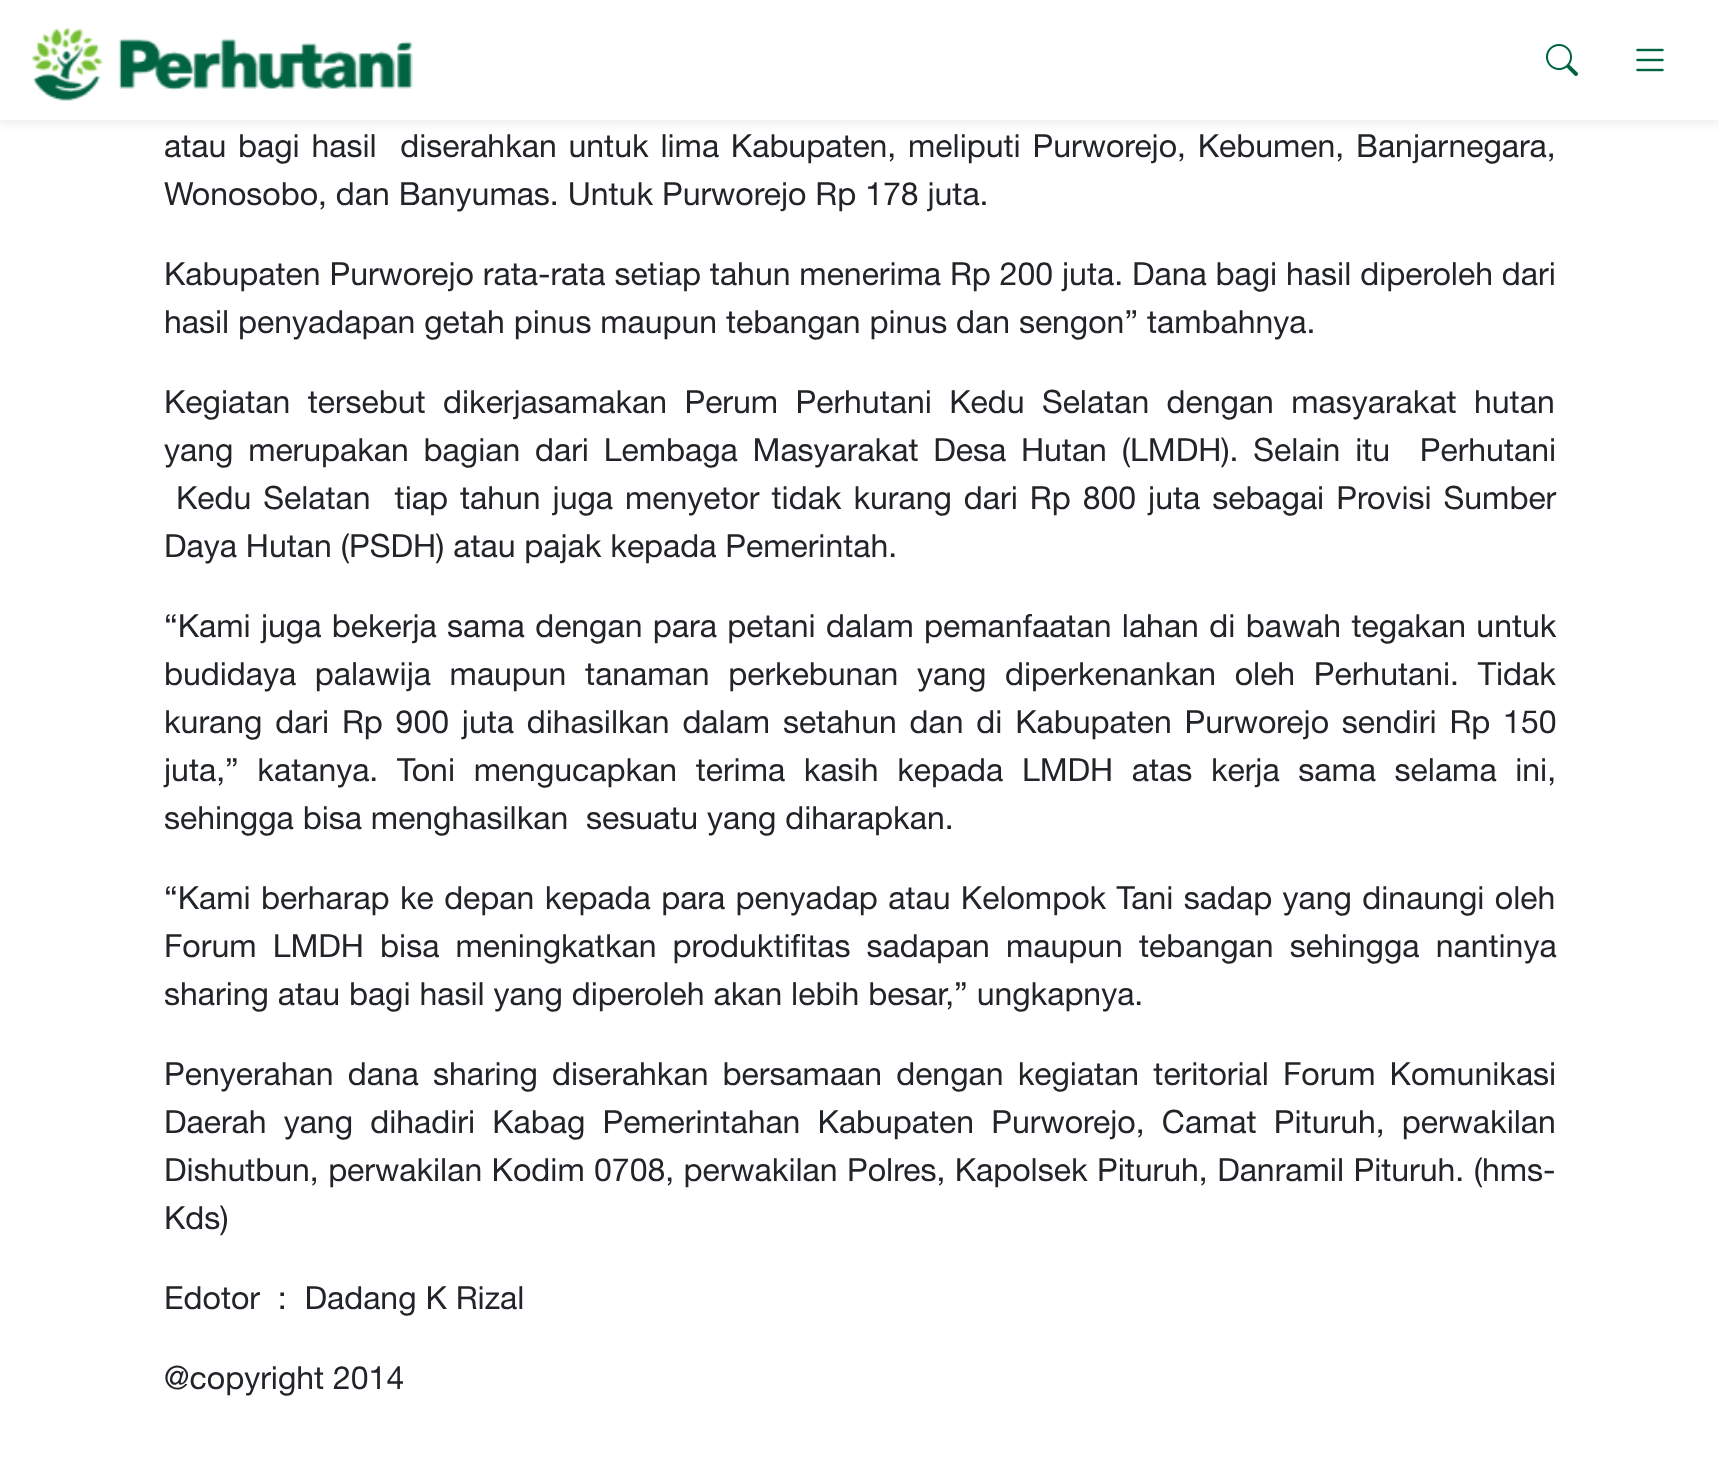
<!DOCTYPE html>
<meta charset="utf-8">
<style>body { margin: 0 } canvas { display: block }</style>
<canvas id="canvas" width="1719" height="1457"></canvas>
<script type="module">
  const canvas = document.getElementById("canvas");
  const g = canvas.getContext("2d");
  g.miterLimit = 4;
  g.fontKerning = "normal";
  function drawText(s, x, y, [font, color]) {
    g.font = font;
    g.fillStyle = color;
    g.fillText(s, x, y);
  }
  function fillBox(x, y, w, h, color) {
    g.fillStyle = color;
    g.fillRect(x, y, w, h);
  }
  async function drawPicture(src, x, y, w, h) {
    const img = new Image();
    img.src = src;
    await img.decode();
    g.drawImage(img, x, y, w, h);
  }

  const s1 = ["32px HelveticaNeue", "#212529"];

  fillBox(0, 0, 1719, 1457, "#FFFFFF");
  g.fillStyle = "rgba(0, 0, 0, 0.07)";
  g.filter = "blur(4px)";
  g.beginPath();
  g.rect(0, 4, 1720, 120);
  g.fill();
  g.filter = "none";
  fillBox(0, 0, 1719, 120, "#FFFFFF");
  await drawPicture("pic1.png", 31, 28, 382, 73);
  await drawPicture("pic2.png", 1546, 44, 32, 32);
  await drawPicture("pic3.png", 1636, 48, 28, 24);
  g.wordSpacing = "2.9px";
  drawText("atau bagi hasil  diserahkan untuk lima Kabupaten, meliputi Purworejo, Kebumen, Banjarnegara,", 164, 157, s1);
  g.wordSpacing = "0px";
  drawText("Wonosobo, dan Banyumas. Untuk Purworejo Rp 178 juta.", 164, 205, s1);
  drawText("Kabupaten Purworejo rata-rata setiap tahun menerima Rp 200 juta. Dana bagi hasil diperoleh dari", 164, 285, s1);
  drawText("hasil penyadapan getah pinus maupun tebangan pinus dan sengon” tambahnya.", 164, 333, s1);
  g.wordSpacing = "8.5px";
  drawText("Kegiatan tersebut dikerjasamakan Perum Perhutani Kedu Selatan dengan masyarakat hutan", 164, 413, s1);
  g.wordSpacing = "5.9px";
  drawText("yang merupakan bagian dari Lembaga Masyarakat Desa Hutan (LMDH). Selain itu  Perhutani", 164, 461, s1);
  g.wordSpacing = "3.1px";
  drawText("Kedu Selatan  tiap tahun juga menyetor tidak kurang dari Rp 800 juta sebagai Provisi Sumber", 176, 509, s1);
  g.wordSpacing = "0px";
  drawText("Daya Hutan (PSDH) atau pajak kepada Pemerintah.", 164, 557, s1);
  g.wordSpacing = "1.5px";
  drawText("“Kami juga bekerja sama dengan para petani dalam pemanfaatan lahan di bawah tegakan untuk", 164, 637, s1);
  g.wordSpacing = "9.75px";
  drawText("budidaya palawija maupun tanaman perkebunan yang diperkenankan oleh Perhutani. Tidak", 164, 685, s1);
  g.wordSpacing = "3.9px";
  drawText("kurang dari Rp 900 juta dihasilkan dalam setahun dan di Kabupaten Purworejo sendiri Rp 150", 164, 733, s1);
  g.wordSpacing = "9.75px";
  drawText("juta,” katanya. Toni mengucapkan terima kasih kepada LMDH atas kerja sama selama ini,", 164, 781, s1);
  g.wordSpacing = "0px";
  drawText("sehingga bisa menghasilkan  sesuatu yang diharapkan.", 164, 829, s1);
  g.wordSpacing = "1.5px";
  drawText("“Kami berharap ke depan kepada para penyadap atau Kelompok Tani sadap yang dinaungi oleh", 164, 909, s1);
  g.wordSpacing = "7.25px";
  drawText("Forum LMDH bisa meningkatkan produktifitas sadapan maupun tebangan sehingga nantinya", 164, 957, s1);
  g.wordSpacing = "0px";
  drawText("sharing atau bagi hasil yang diperoleh akan lebih besar,” ungkapnya.", 164, 1005, s1);
  g.wordSpacing = "5.25px";
  drawText("Penyerahan dana sharing diserahkan bersamaan dengan kegiatan teritorial Forum Komunikasi", 164, 1085, s1);
  g.wordSpacing = "8.25px";
  drawText("Daerah yang dihadiri Kabag Pemerintahan Kabupaten Purworejo, Camat Pituruh, perwakilan", 164, 1133, s1);
  g.wordSpacing = "0.5px";
  drawText("Dishutbun, perwakilan Kodim 0708, perwakilan Polres, Kapolsek Pituruh, Danramil Pituruh. (hms-", 164, 1181, s1);
  g.wordSpacing = "0px";
  drawText("Kds)", 164, 1229, s1);
  drawText("Edotor  :  Dadang K Rizal", 164, 1309, s1);
  drawText("@copyright 2014", 164, 1389, s1);
</script>
